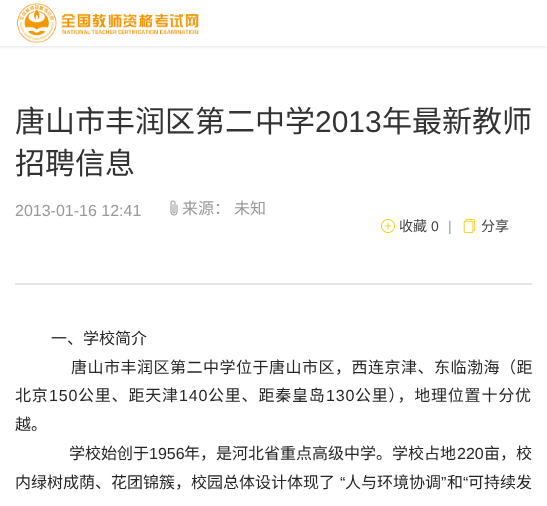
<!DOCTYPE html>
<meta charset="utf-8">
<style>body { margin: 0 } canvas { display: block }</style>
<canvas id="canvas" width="547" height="506"></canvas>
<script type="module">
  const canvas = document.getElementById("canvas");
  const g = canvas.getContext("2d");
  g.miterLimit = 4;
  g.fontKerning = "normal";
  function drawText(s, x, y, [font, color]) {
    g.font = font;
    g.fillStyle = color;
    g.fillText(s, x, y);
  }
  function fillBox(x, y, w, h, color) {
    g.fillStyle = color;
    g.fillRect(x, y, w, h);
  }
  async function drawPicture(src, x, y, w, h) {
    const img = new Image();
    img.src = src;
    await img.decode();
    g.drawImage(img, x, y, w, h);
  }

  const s1 = ["30px Noto Sans CJK SC", "#333333"];
  const s2 = ["30px Liberation Sans", "#333333"];
  const s3 = ["16px Liberation Sans", "#999999"];
  const s4 = ["16px Noto Sans CJK SC", "#999999"];
  const s5 = ["14px Noto Sans CJK SC", "#434343"];
  const s6 = ["14px Liberation Sans", "#434343"];
  const s7 = ["14px Liberation Sans", "#999999"];
  const s8 = ["16px Noto Sans CJK SC", "#262626"];
  const s9 = ["16px Liberation Sans", "#262626"];

  fillBox(0, 0, 547, 506, "#FFFFFF");
  g.fillStyle = "rgba(0, 0, 0, 0.1)";
  g.filter = "blur(1.5px)";
  g.beginPath();
  g.rect(-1, -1, 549, 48);
  g.fill();
  g.filter = "none";
  fillBox(0, 0, 547, 46, "#FFFFFF");
  await drawPicture("pic1.png", 17, 3, 182, 40);
  fillBox(15, 283, 517, 2, "#E5E5E5");
  drawText("唐山市丰润区第二中学", 15, 132, s1);
  drawText("2013", 315, 132, s2);
  drawText("年最新教师", 382, 132, s1);
  drawText("招聘信息", 15, 174, s1);
  drawText("2013-01-16 12:41", 15, 216, s3);
  await drawPicture("pic2.png", 170, 200, 8, 16);
  drawText("来源：", 182, 214, s4);
  drawText("未知", 234, 214, s4);
  await drawPicture("pic3.png", 381, 219, 14, 14);
  drawText("收藏", 399, 231, s5);
  drawText("0", 431, 231, s6);
  drawText("|", 448, 231, s7);
  await drawPicture("pic4.png", 463, 219, 13, 14);
  drawText("分享", 481, 231, s5);
  drawText("一、学校简介", 51, 344, s8);
  g.letterSpacing = "0.5px";
  drawText("唐山市丰润区第二中学位于唐山市区，西连京津、东临渤海（距", 71, 373, s8);
  g.letterSpacing = "0.8px";
  drawText("北京", 15, 401, s8);
  drawText("150", 49, 401, s9);
  drawText("公里、距天津", 78, 401, s8);
  drawText("140", 179, 401, s9);
  drawText("公里、距秦皇岛", 208, 401, s8);
  drawText("130", 326, 401, s9);
  drawText("公里），地理位置十分优", 355, 401, s8);
  g.letterSpacing = "0px";
  drawText("越。", 15, 430, s8);
  drawText("学校始创于", 69, 459, s8);
  drawText("1956", 149, 459, s9);
  drawText("年，是河北省重点高级中学。学校占地", 184, 459, s8);
  drawText("220", 457, 459, s9);
  drawText("亩，校", 484, 459, s8);
  drawText("内绿树成荫、花团锦簇，校园总体设计体现了", 15, 488, s8);
  drawText("“", 340, 488, s9);
  drawText("人与环境协调", 345, 488, s8);
  drawText("”", 441, 488, s9);
  drawText("和", 447, 488, s8);
  drawText("“", 463, 488, s9);
  drawText("可持续发", 468, 488, s8);
</script>
